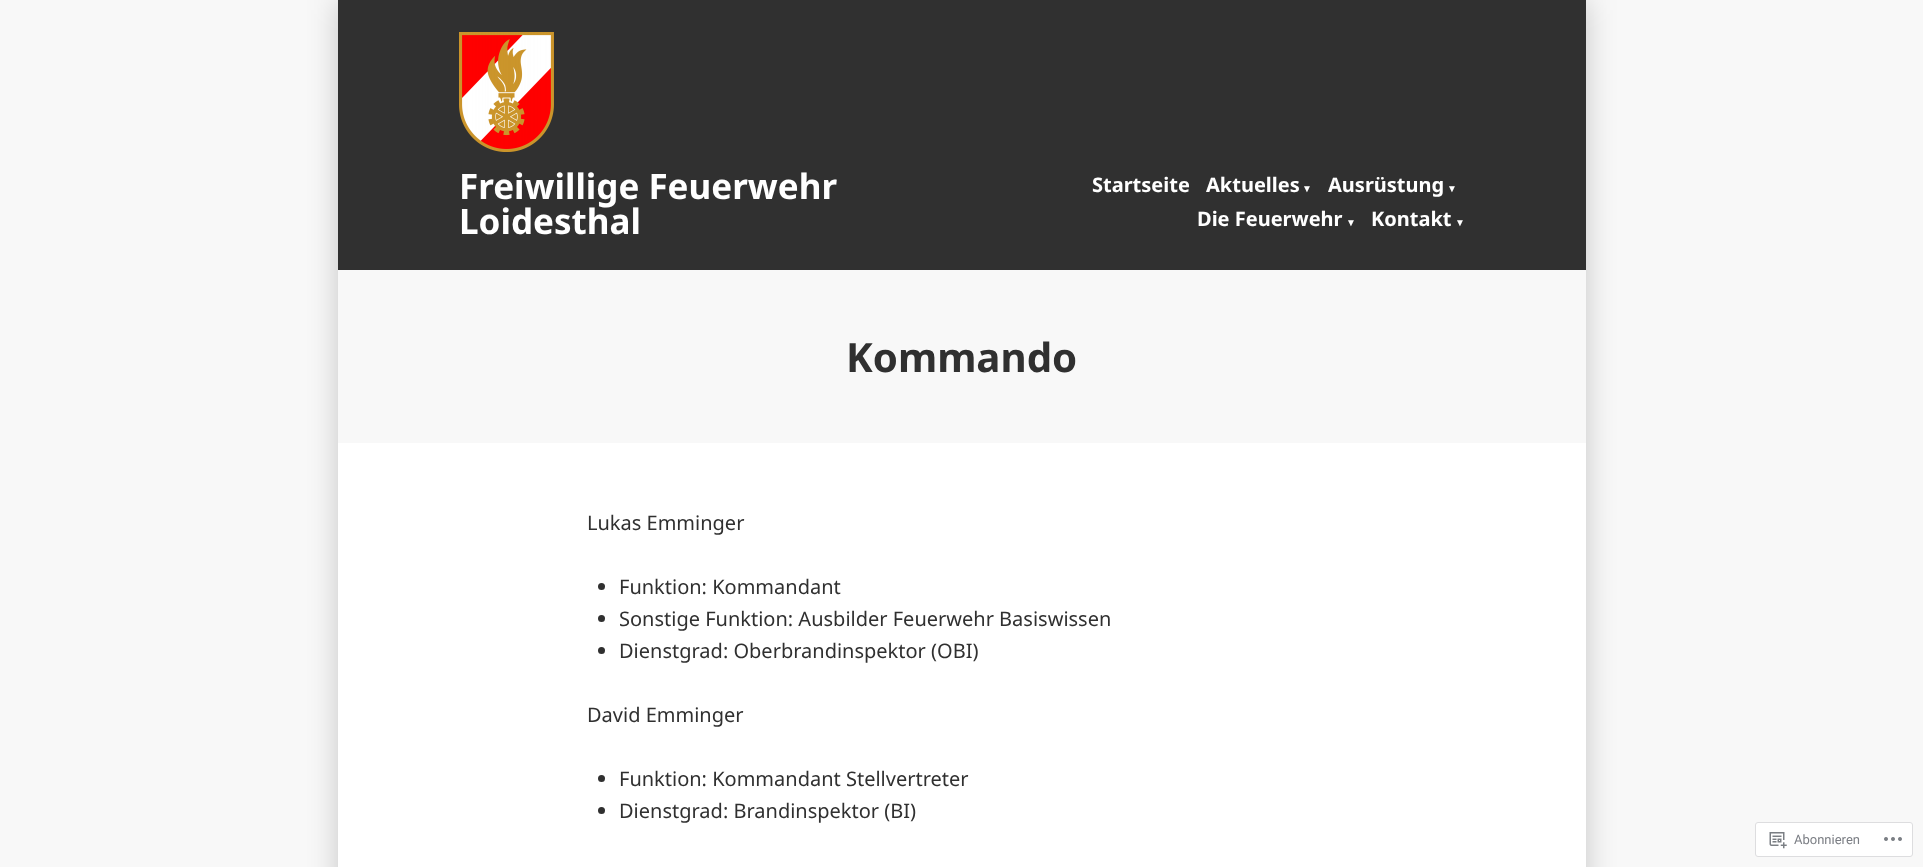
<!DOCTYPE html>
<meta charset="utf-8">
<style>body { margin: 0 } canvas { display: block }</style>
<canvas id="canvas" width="1923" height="867"></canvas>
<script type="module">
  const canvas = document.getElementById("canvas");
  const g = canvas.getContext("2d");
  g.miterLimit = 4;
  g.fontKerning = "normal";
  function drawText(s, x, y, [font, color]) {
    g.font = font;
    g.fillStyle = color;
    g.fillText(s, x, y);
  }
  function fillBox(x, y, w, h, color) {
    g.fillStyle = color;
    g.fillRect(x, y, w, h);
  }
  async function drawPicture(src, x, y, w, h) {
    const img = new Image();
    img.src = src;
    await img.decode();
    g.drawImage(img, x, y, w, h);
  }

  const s1 = ["bold 35px Noto Sans", "#FFFFFF"];
  const s2 = ["bold 20px Noto Sans", "#FFFFFF"];
  const s3 = ["bold 10px Liberation Sans", "#FFFFFF"];
  const s4 = ["bold 40.25px Noto Sans", "#303030"];
  const s5 = ["20px Noto Sans", "#303030"];
  const s6 = ["13px Roboto", "#7B7E84"];

  fillBox(0, 0, 1923, 867, "#F8F8F8");
  g.fillStyle = "rgba(0, 0, 0, 0.2)";
  g.filter = "blur(15px)";
  g.beginPath();
  g.rect(338, 0, 1248, 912);
  g.fill();
  g.filter = "none";
  fillBox(338, 443, 1248, 424, "#FFFFFF");
  fillBox(338, 0, 1248, 270, "#303030");
  await drawPicture("pic1.png", 459, 32, 95, 120);
  drawText("Freiwillige Feuerwehr", 459, 199, s1);
  drawText("Loidesthal", 459, 234, s1);
  drawText("Startseite", 1092, 192, s2);
  drawText("Aktuelles", 1206, 192, s2);
  drawText("▼", 1302, 192, s3);
  drawText("Ausrüstung", 1328, 192, s2);
  drawText("▼", 1447, 192, s3);
  drawText("Die Feuerwehr", 1197, 226, s2);
  drawText("▼", 1346, 226, s3);
  drawText("Kontakt", 1371, 226, s2);
  drawText("▼", 1455, 226, s3);
  fillBox(338, 270, 1248, 173, "#F8F8F8");
  drawText("Kommando", 846, 372, s4);
  drawText("Lukas Emminger", 587, 530, s5);
  g.beginPath();
  g.arc(601.5, 586.5, 3.5, 0, Math.PI * 2);
  g.fill();
  drawText("Funktion: Kommandant", 619, 594, s5);
  g.beginPath();
  g.arc(601.5, 618.5, 3.5, 0, Math.PI * 2);
  g.fill();
  drawText("Sonstige Funktion: Ausbilder Feuerwehr Basiswissen", 619, 626, s5);
  g.beginPath();
  g.arc(601.5, 650.5, 3.5, 0, Math.PI * 2);
  g.fill();
  drawText("Dienstgrad: Oberbrandinspektor (OBI)", 619, 658, s5);
  drawText("David Emminger", 587, 722, s5);
  g.beginPath();
  g.arc(601.5, 778.5, 3.5, 0, Math.PI * 2);
  g.fill();
  drawText("Funktion: Kommandant Stellvertreter", 619, 786, s5);
  g.beginPath();
  g.arc(601.5, 810.5, 3.5, 0, Math.PI * 2);
  g.fill();
  drawText("Dienstgrad: Brandinspektor (BI)", 619, 818, s5);
  g.fillStyle = "#FFFFFF";
  g.beginPath();
  g.roundRect(1755.5, 822.5, 157, 34, 2.5);
  g.fill();
  g.strokeStyle = "#DDDDDF";
  g.stroke();
  await drawPicture("pic2.png", 1769, 832, 18, 17);
  drawText("Abonnieren", 1794, 844, s6);
  await drawPicture("pic3.png", 1884, 837, 18, 4);
</script>
